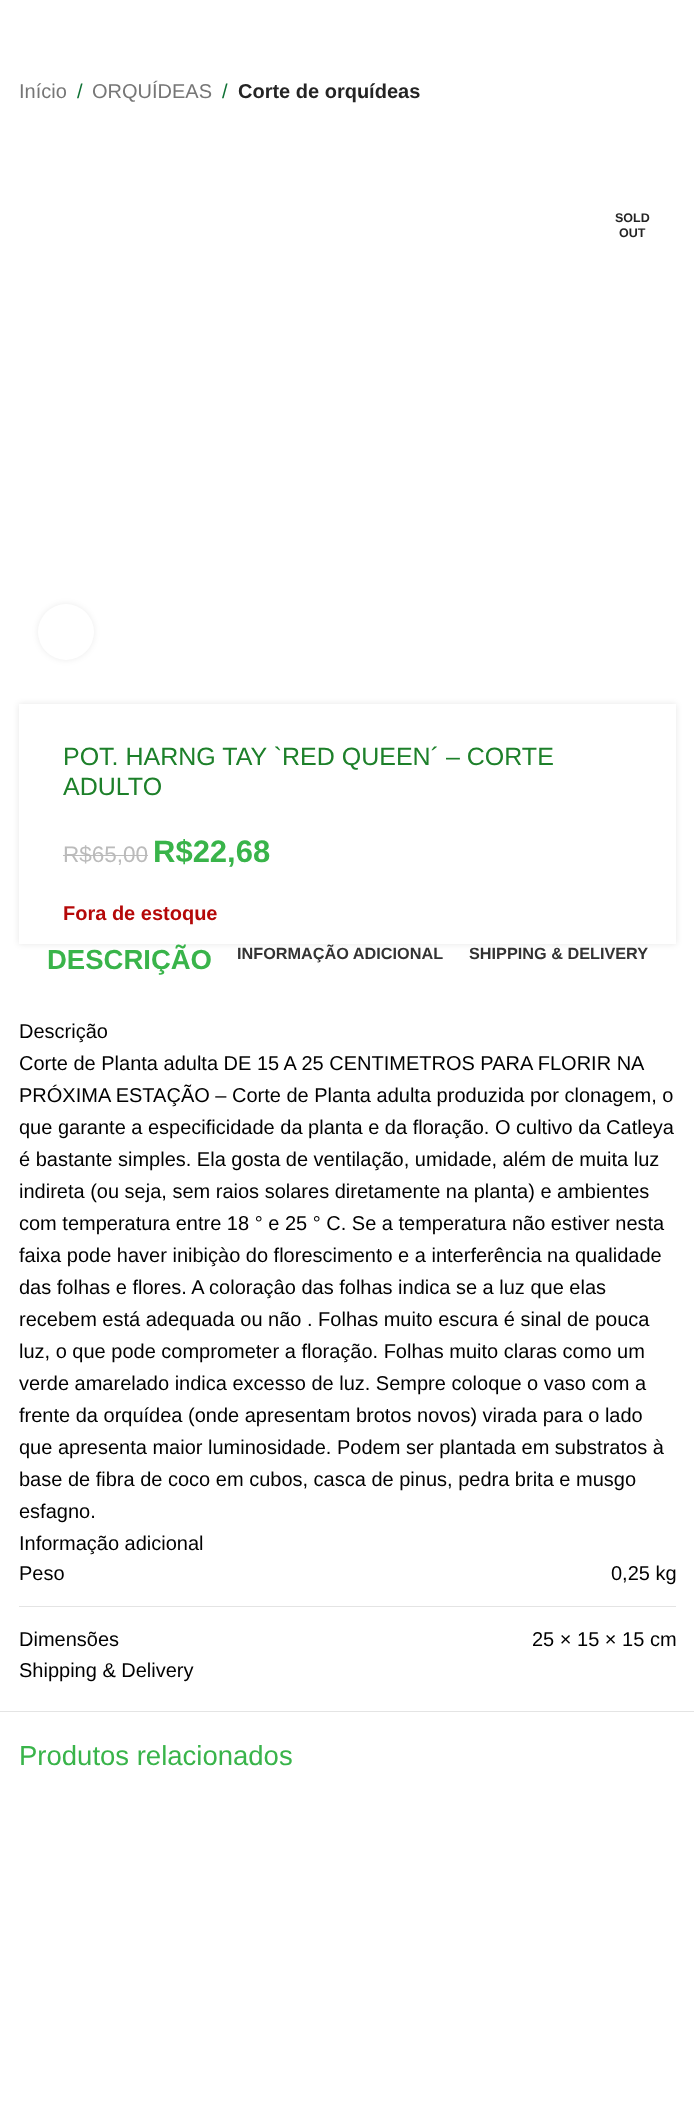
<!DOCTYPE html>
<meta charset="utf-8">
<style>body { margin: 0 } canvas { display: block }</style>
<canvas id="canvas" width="694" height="2116"></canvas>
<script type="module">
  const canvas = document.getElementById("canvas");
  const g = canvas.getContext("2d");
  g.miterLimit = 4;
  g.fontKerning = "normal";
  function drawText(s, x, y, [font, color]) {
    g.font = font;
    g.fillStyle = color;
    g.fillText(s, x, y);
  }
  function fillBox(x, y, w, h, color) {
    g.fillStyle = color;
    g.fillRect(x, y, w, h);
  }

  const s1 = ["20px Liberation Sans", "#767676"];
  const s2 = ["20px Liberation Sans", "#0E7134"];
  const s3 = ["bold 20px Liberation Sans", "#242424"];
  const s4 = ["bold 12.5px Liberation Sans", "#242424"];
  const s5 = ["25px Liberation Sans", "#1D802A"];
  const s6 = ["22.5px Liberation Sans", "#BBBBBB"];
  const s7 = ["bold 31px Liberation Sans", "#39B44A"];
  const s8 = ["bold 20px Liberation Sans", "#B50808"];
  const s9 = ["bold 27.5px Liberation Sans", "#39B44A"];
  const s10 = ["bold 16.25px Liberation Sans", "#333333"];
  const s11 = ["20px Liberation Sans", "#000000"];
  const s12 = ["27.5px Liberation Sans", "#39B44A"];

  fillBox(0, 0, 694, 2116, "#FFFFFF");
  drawText("Início", 19, 98, s1);
  drawText("/", 77, 98, s2);
  drawText("ORQUÍDEAS", 92, 98, s1);
  drawText("/", 222, 98, s2);
  drawText("Corte de orquídeas", 238, 98, s3);
  drawText("SOLD", 615, 222, s4);
  drawText("OUT", 619, 237, s4);
  g.fillStyle = "rgba(0, 0, 0, 0.08)";
  g.filter = "blur(3px)";
  g.beginPath();
  g.roundRect(38, 604, 56, 56, 28);
  g.fill();
  g.filter = "none";
  g.fillStyle = "#FFFFFF";
  g.beginPath();
  g.arc(66, 632, 28, 0, Math.PI * 2);
  g.fill();
  g.fillStyle = "rgba(0, 0, 0, 0.1)";
  g.filter = "blur(3px)";
  g.beginPath();
  g.rect(19, 704, 657, 240);
  g.fill();
  g.filter = "none";
  fillBox(19, 704, 657, 240, "#FFFFFF");
  drawText("POT. HARNG TAY `RED QUEEN´ – CORTE", 63, 765, s5);
  drawText("ADULTO", 63, 795, s5);
  drawText("R$65,00", 63, 862, s6);
  fillBox(63, 855, 85, 1, "#BBBBBB");
  drawText("R$22,68", 153, 862, s7);
  drawText("Fora de estoque", 63, 920, s8);
  fillBox(0, 1711, 694, 1, "#E4E4E4");
  drawText("DESCRIÇÃO", 47, 969, s9);
  drawText("INFORMAÇÃO ADICIONAL", 237, 959, s10);
  drawText("SHIPPING & DELIVERY", 469, 959, s10);
  drawText("Descrição", 19, 1038, s11);
  drawText("Corte de Planta adulta DE 15 A 25 CENTIMETROS PARA FLORIR NA", 19, 1070, s11);
  drawText("PRÓXIMA ESTAÇÃO – Corte de Planta adulta produzida por clonagem, o", 19, 1102, s11);
  drawText("que garante a especificidade da planta e da floração. O cultivo da Catleya", 19, 1134, s11);
  drawText("é bastante simples. Ela gosta de ventilação, umidade, além de muita luz", 19, 1166, s11);
  drawText("indireta (ou seja, sem raios solares diretamente na planta) e ambientes", 19, 1198, s11);
  drawText("com temperatura entre 18 ° e 25 ° C. Se a temperatura não estiver nesta", 19, 1230, s11);
  drawText("faixa pode haver inibiçào do florescimento e a interferência na qualidade", 19, 1262, s11);
  drawText("das folhas e flores. A coloraçâo das folhas indica se a luz que elas", 19, 1294, s11);
  drawText("recebem está adequada ou não . Folhas muito escura é sinal de pouca", 19, 1326, s11);
  drawText("luz, o que pode comprometer a floração. Folhas muito claras como um", 19, 1358, s11);
  drawText("verde amarelado indica excesso de luz. Sempre coloque o vaso com a", 19, 1390, s11);
  drawText("frente da orquídea (onde apresentam brotos novos) virada para o lado", 19, 1422, s11);
  drawText("que apresenta maior luminosidade. Podem ser plantada em substratos à", 19, 1454, s11);
  drawText("base de fibra de coco em cubos, casca de pinus, pedra brita e musgo", 19, 1486, s11);
  drawText("esfagno.", 19, 1518, s11);
  drawText("Informação adicional", 19, 1550, s11);
  fillBox(19, 1606, 657, 1, "#E4E4E4");
  drawText("Peso", 19, 1580, s11);
  drawText("0,25 kg", 611, 1580, s11);
  drawText("Dimensões", 19, 1646, s11);
  drawText("25 × 15 × 15 cm", 532, 1646, s11);
  drawText("Shipping & Delivery", 19, 1677, s11);
  drawText("Produtos relacionados", 19, 1765, s12);
</script>
